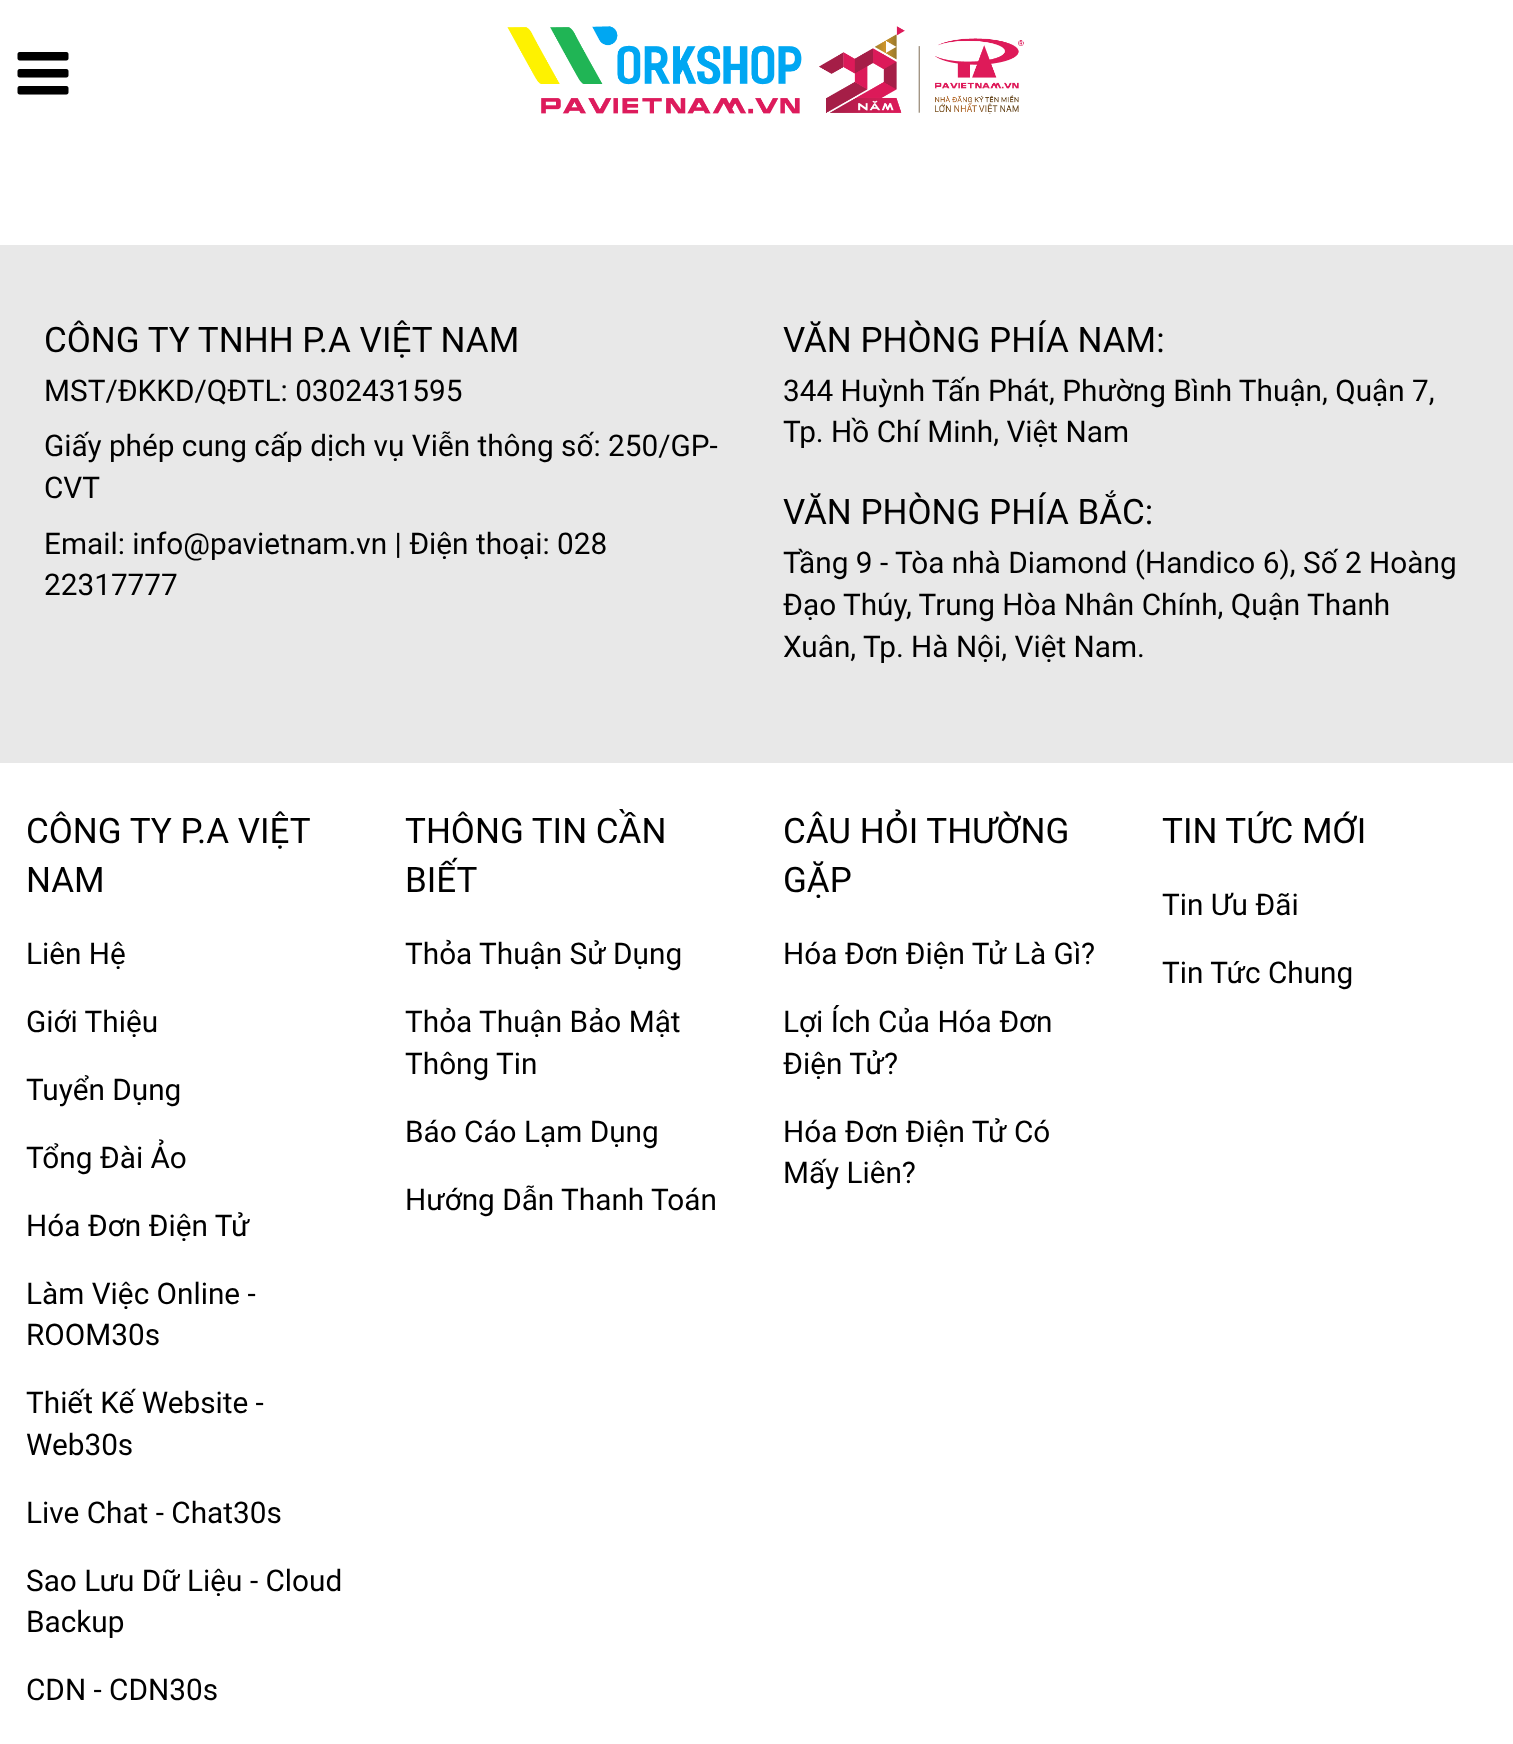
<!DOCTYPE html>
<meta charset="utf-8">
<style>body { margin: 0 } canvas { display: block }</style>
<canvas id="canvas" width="1513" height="1744"></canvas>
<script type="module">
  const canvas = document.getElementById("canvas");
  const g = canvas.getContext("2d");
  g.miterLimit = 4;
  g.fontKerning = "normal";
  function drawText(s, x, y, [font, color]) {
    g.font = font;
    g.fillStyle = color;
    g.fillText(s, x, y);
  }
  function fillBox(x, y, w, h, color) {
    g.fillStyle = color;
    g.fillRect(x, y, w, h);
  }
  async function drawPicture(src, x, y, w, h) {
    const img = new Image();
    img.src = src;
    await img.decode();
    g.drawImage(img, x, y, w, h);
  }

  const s1 = ["35px Roboto", "#000000"];
  const s2 = ["29.75px Roboto", "#000000"];

  fillBox(0, 0, 1513, 1744, "#FFFFFF");
  await drawPicture("pic1.png", 17, 52, 52, 43);
  await drawPicture("pic2.png", 507, 26, 295, 88);
  await drawPicture("pic3.png", 819, 26, 205, 88);
  fillBox(0, 245, 1513, 518, "#E8E8E8");
  drawText("CÔNG TY TNHH P.A VIỆT NAM", 44, 352, s1);
  drawText("MST/ĐKKD/QĐTL: 0302431595", 44, 401, s2);
  drawText("Giấy phép cung cấp dịch vụ Viễn thông số: 250/GP-", 44, 456, s2);
  drawText("CVT", 44, 498, s2);
  drawText("Email: info@pavietnam.vn | Điện thoại: 028", 44, 554, s2);
  drawText("22317777", 44, 595, s2);
  drawText("VĂN PHÒNG PHÍA NAM:", 783, 352, s1);
  drawText("344 Huỳnh Tấn Phát, Phường Bình Thuận, Quận 7,", 783, 401, s2);
  drawText("Tp. Hồ Chí Minh, Việt Nam", 783, 442, s2);
  drawText("VĂN PHÒNG PHÍA BẮC:", 783, 524, s1);
  drawText("Tầng 9 - Tòa nhà Diamond (Handico 6), Số 2 Hoàng", 783, 573, s2);
  drawText("Đạo Thúy, Trung Hòa Nhân Chính, Quận Thanh", 783, 615, s2);
  drawText("Xuân, Tp. Hà Nội, Việt Nam.", 783, 657, s2);
  drawText("CÔNG TY P.A VIỆT", 26, 843, s1);
  drawText("NAM", 26, 892, s1);
  drawText("Liên Hệ", 26, 964, s2);
  drawText("Giới Thiệu", 26, 1032, s2);
  drawText("Tuyển Dụng", 26, 1100, s2);
  drawText("Tổng Đài Ảo", 26, 1168, s2);
  drawText("Hóa Đơn Điện Tử", 26, 1236, s2);
  drawText("Làm Việc Online -", 26, 1304, s2);
  drawText("ROOM30s", 26, 1345, s2);
  drawText("Thiết Kế Website -", 26, 1413, s2);
  drawText("Web30s", 26, 1455, s2);
  drawText("Live Chat - Chat30s", 26, 1523, s2);
  drawText("Sao Lưu Dữ Liệu - Cloud", 26, 1591, s2);
  drawText("Backup", 26, 1632, s2);
  drawText("CDN - CDN30s", 26, 1700, s2);
  drawText("THÔNG TIN CẦN", 405, 843, s1);
  drawText("BIẾT", 405, 892, s1);
  drawText("Thỏa Thuận Sử Dụng", 405, 964, s2);
  drawText("Thỏa Thuận Bảo Mật", 405, 1032, s2);
  drawText("Thông Tin", 405, 1074, s2);
  drawText("Báo Cáo Lạm Dụng", 405, 1142, s2);
  drawText("Hướng Dẫn Thanh Toán", 405, 1210, s2);
  drawText("CÂU HỎI THƯỜNG", 783, 843, s1);
  drawText("GẶP", 783, 892, s1);
  drawText("Hóa Đơn Điện Tử Là Gì?", 783, 964, s2);
  drawText("Lợi Ích Của Hóa Đơn", 783, 1032, s2);
  drawText("Điện Tử?", 783, 1074, s2);
  drawText("Hóa Đơn Điện Tử Có", 783, 1142, s2);
  drawText("Mấy Liên?", 783, 1183, s2);
  drawText("TIN TỨC MỚI", 1162, 843, s1);
  drawText("Tin Ưu Đãi", 1162, 915, s2);
  drawText("Tin Tức Chung", 1162, 983, s2);
</script>
